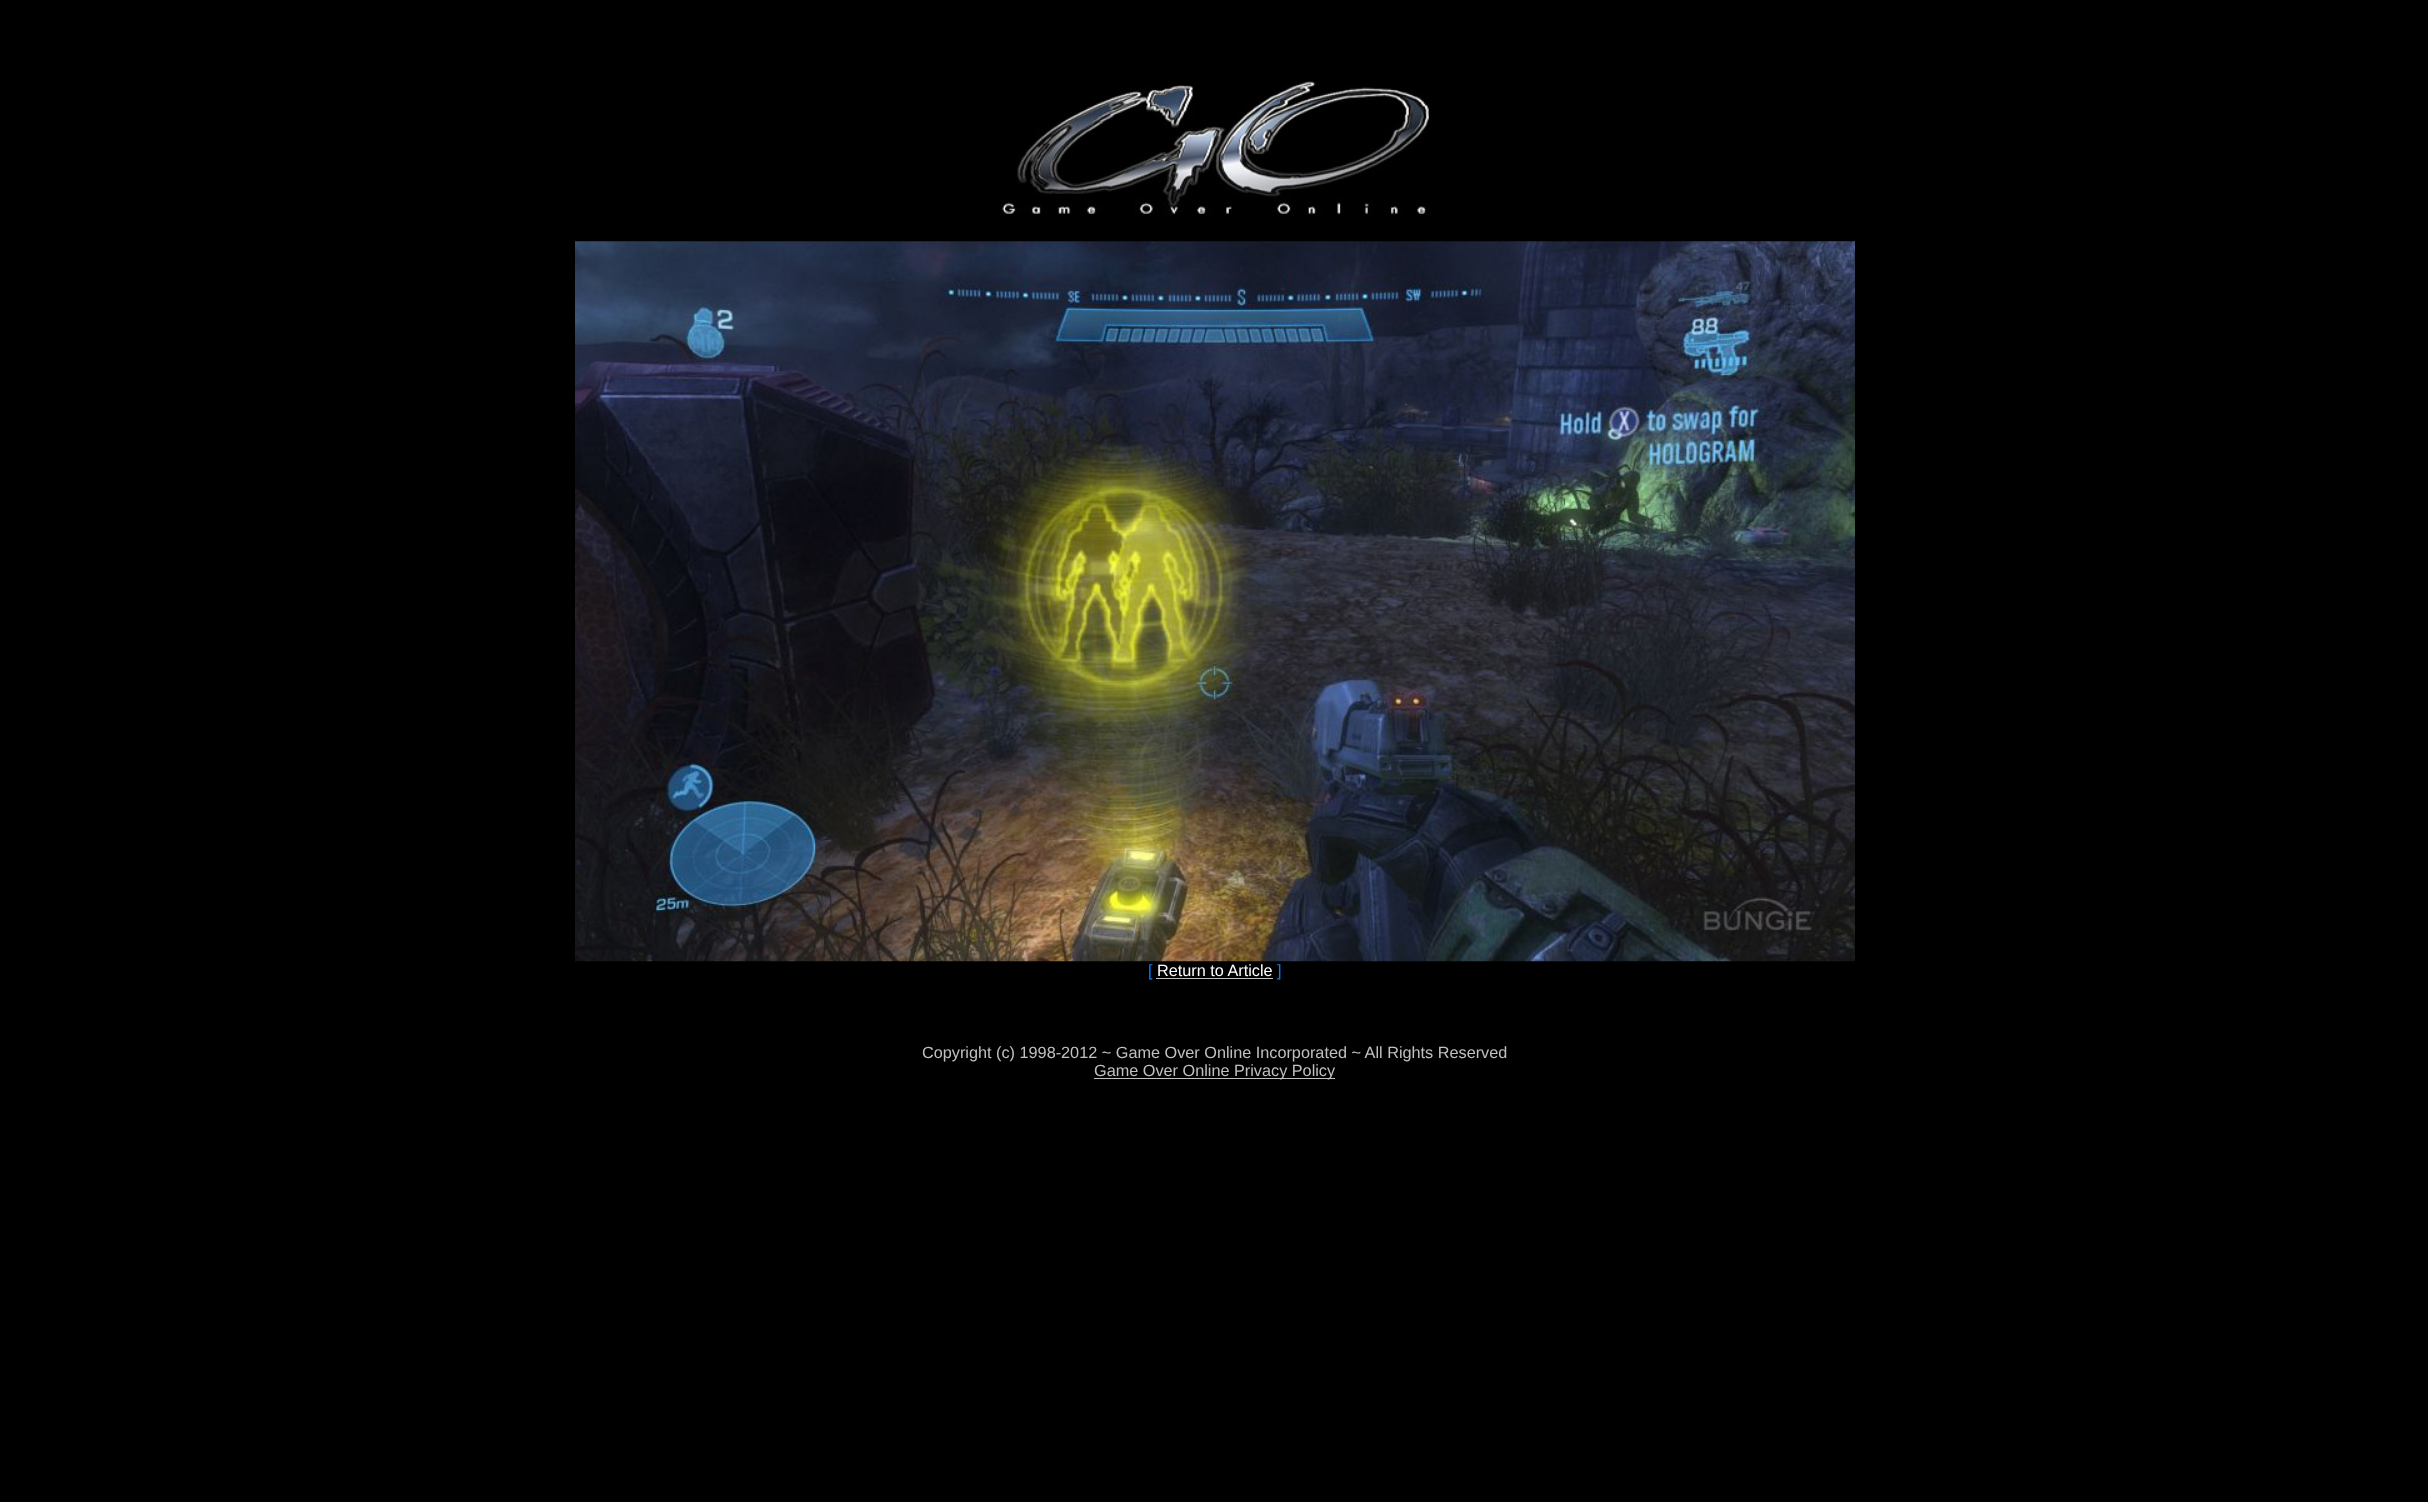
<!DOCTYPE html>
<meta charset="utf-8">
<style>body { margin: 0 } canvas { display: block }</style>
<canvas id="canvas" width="2428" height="1502"></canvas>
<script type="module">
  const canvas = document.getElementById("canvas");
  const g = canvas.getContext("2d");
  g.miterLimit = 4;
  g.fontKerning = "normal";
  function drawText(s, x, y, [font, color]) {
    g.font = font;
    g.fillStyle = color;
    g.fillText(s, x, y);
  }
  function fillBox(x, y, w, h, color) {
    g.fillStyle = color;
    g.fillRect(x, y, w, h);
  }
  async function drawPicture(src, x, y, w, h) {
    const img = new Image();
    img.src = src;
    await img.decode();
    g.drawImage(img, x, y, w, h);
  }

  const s1 = ["16.25px Liberation Sans", "#0080FF"];
  const s2 = ["16.25px Liberation Sans", "#FFFFFF"];
  const s3 = ["16.25px Liberation Sans", "#C0C0C0"];

  fillBox(0, 0, 2428, 1502, "#000000");
  await drawPicture("pic1.png", 1002, 81, 428, 134);
  await drawPicture("pic2.png", 575, 241, 1280, 721);
  drawText("[", 1148, 976, s1);
  drawText("Return to Article", 1157, 976, s2);
  fillBox(1156, 978, 117, 1, "#C0C0C0");
  drawText("]", 1277, 976, s1);
  drawText("Copyright (c) 1998-2012 ~ Game Over Online Incorporated ~ All Rights Reserved", 922, 1058, s3);
  fillBox(1094, 1078, 241, 1, "#C0C0C0");
  drawText("Game Over Online Privacy Policy", 1094, 1076, s3);
</script>
